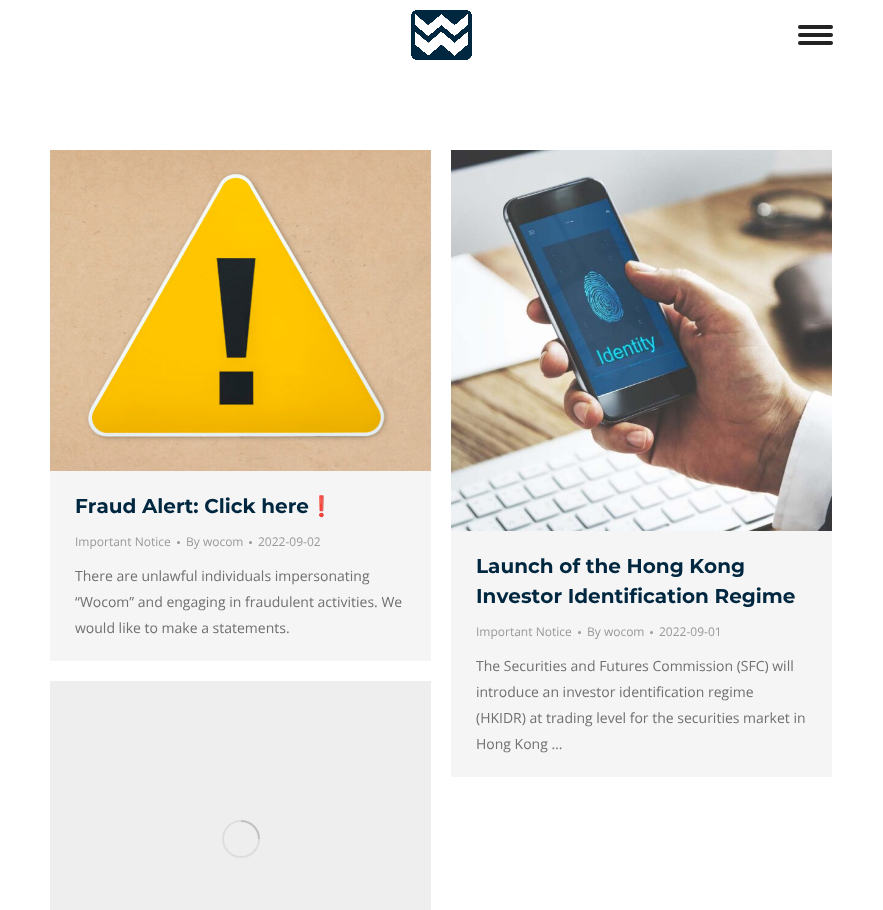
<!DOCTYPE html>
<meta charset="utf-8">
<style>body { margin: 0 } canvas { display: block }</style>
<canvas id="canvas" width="883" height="910"></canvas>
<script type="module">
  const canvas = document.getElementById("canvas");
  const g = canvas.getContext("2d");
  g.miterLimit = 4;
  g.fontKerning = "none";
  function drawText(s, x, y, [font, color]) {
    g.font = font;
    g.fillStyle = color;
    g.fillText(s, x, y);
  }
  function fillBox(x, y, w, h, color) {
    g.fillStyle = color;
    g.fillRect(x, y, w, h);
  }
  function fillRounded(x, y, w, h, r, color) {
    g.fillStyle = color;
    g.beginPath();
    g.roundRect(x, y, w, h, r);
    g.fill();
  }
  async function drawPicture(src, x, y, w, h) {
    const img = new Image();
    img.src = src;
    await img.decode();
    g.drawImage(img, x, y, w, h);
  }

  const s1 = ["bold 20px Montserrat", "#002740"];
  const s2 = ["bold 20px Noto Color Emoji", "#002740"];
  const s3 = ["12px Open Sans", "#999999"];
  const s4 = ["14px Open Sans", "#707070"];

  fillBox(0, 0, 883, 910, "#FFFFFF");
  await drawPicture("pic1.png", 411, 10, 61, 50);
  fillRounded(798, 25, 35, 4, 2, "#222222");
  fillRounded(798, 33, 35, 4, 2, "#222222");
  fillRounded(798, 41, 35, 4, 2, "#222222");
  fillBox(50, 150, 381, 511, "#F5F5F5");
  await drawPicture("pic2.png", 50, 150, 381, 321);
  drawText("Fraud Alert: Click here", 75, 513, s1);
  drawText("❗", 309, 513, s2);
  drawText("Important Notice", 75, 546, s3);
  g.beginPath();
  g.arc(178.5, 542.5, 1.5, 0, Math.PI * 2);
  g.fill();
  drawText("By wocom", 186, 546, s3);
  g.beginPath();
  g.arc(250.5, 542.5, 1.5, 0, Math.PI * 2);
  g.fill();
  drawText("2022-09-02", 258, 546, s3);
  drawText("There are unlawful individuals impersonating", 75, 581, s4);
  drawText("“Wocom” and engaging in fraudulent activities. We", 75, 607, s4);
  drawText("would like to make a statements.", 75, 633, s4);
  fillBox(451, 531, 381, 246, "#F5F5F5");
  await drawPicture("pic3.png", 451, 150, 381, 381);
  drawText("Launch of the Hong Kong", 476, 573, s1);
  drawText("Investor Identification Regime", 476, 603, s1);
  drawText("Important Notice", 476, 636, s3);
  g.beginPath();
  g.arc(579.5, 632.5, 1.5, 0, Math.PI * 2);
  g.fill();
  drawText("By wocom", 587, 636, s3);
  g.beginPath();
  g.arc(651.5, 632.5, 1.5, 0, Math.PI * 2);
  g.fill();
  drawText("2022-09-01", 659, 636, s3);
  drawText("The Securities and Futures Commission (SFC) will", 476, 671, s4);
  drawText("introduce an investor identification regime", 476, 697, s4);
  drawText("(HKIDR) at trading level for the securities market in", 476, 723, s4);
  drawText("Hong Kong …", 476, 749, s4);
  fillBox(50, 681, 381, 229, "#EEEEEE");
  g.beginPath();
  g.arc(241, 839, 18, 0, Math.PI * 2);
  g.strokeStyle = "#DDDDDD";
  g.lineWidth = 2;
  g.stroke();
  g.beginPath();
  g.moveTo(259, 839);
  g.bezierCurveTo(259, 829, 251, 821, 241, 821);
  g.strokeStyle = "rgba(112, 112, 112, 0.25)";
  g.stroke();
</script>
